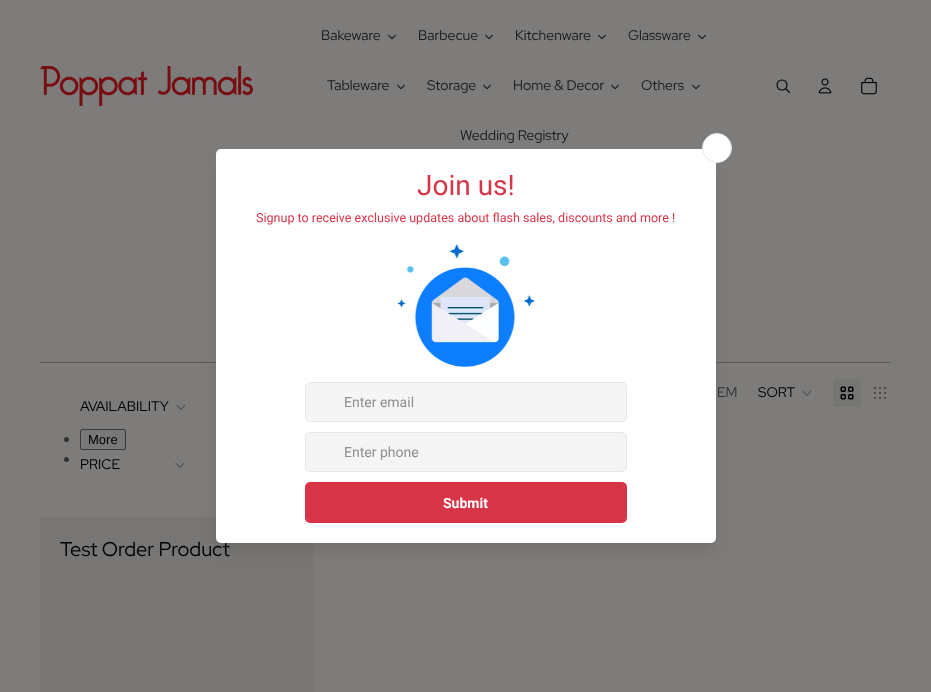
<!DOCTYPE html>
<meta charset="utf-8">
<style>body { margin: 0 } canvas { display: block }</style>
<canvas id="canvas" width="931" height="692"></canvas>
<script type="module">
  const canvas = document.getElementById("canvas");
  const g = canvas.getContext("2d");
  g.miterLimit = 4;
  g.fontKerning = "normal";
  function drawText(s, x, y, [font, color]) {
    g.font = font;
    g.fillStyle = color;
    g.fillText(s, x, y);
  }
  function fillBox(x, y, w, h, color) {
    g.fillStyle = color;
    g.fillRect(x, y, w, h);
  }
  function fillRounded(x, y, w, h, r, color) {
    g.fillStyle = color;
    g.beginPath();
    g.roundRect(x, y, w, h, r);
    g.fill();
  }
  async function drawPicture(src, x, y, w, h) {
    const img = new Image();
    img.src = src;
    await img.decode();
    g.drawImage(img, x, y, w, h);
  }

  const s1 = ["14px Red Hat Display", "#1A1A1A"];
  const s2 = ["20px Red Hat Display", "#000000"];
  const s3 = ["28px Roboto", "#D63447"];
  const s4 = ["12.55px Roboto", "#D63447"];
  const s5 = ["14px Roboto", "#8E8E8E"];
  const s6 = ["bold 14px Roboto", "#FFFFFF"];
  const s7 = ["14px Red Hat Display", "#323231"];
  const s8 = ["14px Red Hat Display", "#000000"];
  const s9 = ["13px Liberation Sans", "#000000"];

  fillBox(0, 0, 931, 692, "#7D7C7B");
  await drawPicture("pic1.png", 40, 66, 213, 40);
  drawText("Bakeware", 321, 40, s1);
  await drawPicture("pic2.png", 388, 34, 8, 6);
  drawText("Barbecue", 418, 40, s1);
  await drawPicture("pic2.png", 485, 34, 8, 6);
  drawText("Kitchenware", 515, 40, s1);
  await drawPicture("pic2.png", 598, 34, 8, 6);
  drawText("Glassware", 628, 40, s1);
  await drawPicture("pic2.png", 698, 34, 8, 6);
  drawText("Tableware", 327, 90, s1);
  await drawPicture("pic2.png", 397, 84, 8, 6);
  drawText("Storage", 427, 90, s1);
  await drawPicture("pic2.png", 483, 84, 8, 6);
  drawText("Home & Decor", 513, 90, s1);
  await drawPicture("pic2.png", 611, 84, 8, 6);
  drawText("Others", 641, 90, s1);
  await drawPicture("pic2.png", 692, 84, 8, 6);
  drawText("Wedding Registry", 460, 140, s1);
  g.beginPath();
  g.arc(782, 85, 5, 0, Math.PI * 2);
  g.strokeStyle = "#000000";
  g.lineWidth = 1.1;
  g.stroke();
  g.beginPath();
  g.moveTo(786, 89);
  g.lineTo(789.5, 92.5);
  g.lineCap = "round";
  g.lineJoin = "round";
  g.stroke();
  await drawPicture("pic3.png", 818, 78, 14, 16);
  await drawPicture("pic4.png", 861, 77, 16, 18);
  g.fillStyle = "#5A5A59";
  g.beginPath();
  g.moveTo(891, 362);
  g.lineTo(891, 363);
  g.lineTo(890, 362);
  g.closePath();
  g.fill();
  g.fillStyle = "rgba(0, 0, 0, 0.28)";
  g.beginPath();
  g.moveTo(891, 363);
  g.lineTo(40, 363);
  g.lineTo(40, 362);
  g.lineTo(890, 362);
  g.closePath();
  g.fill();
  fillBox(40, 517, 273, 175, "#777675");
  g.fillStyle = "rgba(0, 0, 0, 0.1)";
  g.filter = "blur(7.5px)";
  g.beginPath();
  g.roundRect(219, 162, 494, 388, 2);
  g.fill();
  g.filter = "none";
  g.save();
  g.beginPath();
  g.rect(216, 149, 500, 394);
  g.clip();
  g.fillStyle = "rgba(0, 0, 0, 0.12)";
  g.filter = "blur(10px)";
  g.beginPath();
  g.roundRect(219, 152, 494, 388, 2);
  g.fill();
  g.filter = "none";
  g.restore();
  drawText("Test Order Product", 60, 556, s2);
  fillRounded(216, 149, 500, 394, 5, "#FFFFFF");
  g.beginPath();
  g.arc(717, 148, 14.5, 0, Math.PI * 2);
  g.fill();
  g.strokeStyle = "#E2E8F0";
  g.lineWidth = 1;
  g.stroke();
  drawText("Join us!", 417, 195, s3);
  drawText("Signup to receive exclusive updates about flash sales, discounts and more !", 256, 222, s4);
  await drawPicture("pic5.png", 397, 244, 138, 123);
  g.fillStyle = "#F5F5F5";
  g.beginPath();
  g.roundRect(305.5, 382.5, 321, 39, 4.5);
  g.fill();
  g.lineJoin = "miter";
  g.stroke();
  drawText("Enter email", 344, 407, s5);
  g.fillStyle = "#F5F5F5";
  g.beginPath();
  g.roundRect(305.5, 432.5, 321, 39, 4.5);
  g.fill();
  g.stroke();
  drawText("Enter phone", 344, 457, s5);
  fillRounded(305, 482, 322, 41, 5, "#D63447");
  drawText("Submit", 443, 508, s6);
  drawText("EM", 717, 397, s7);
  drawText("SORT", 758, 397, s8);
  g.beginPath();
  g.moveTo(810.5, 391.5);
  g.lineTo(807, 395.5);
  g.lineTo(803, 391.5);
  g.strokeStyle = "#3F3E3E";
  g.lineJoin = "round";
  g.stroke();
  fillRounded(833, 379, 28, 28, 3, "#757574");
  await drawPicture("pic6.png", 840, 386, 14, 14);
  await drawPicture("pic7.png", 874, 387, 12, 12);
  drawText("AVAILABILITY", 80, 411, s8);
  g.beginPath();
  g.moveTo(184.5, 405.5);
  g.lineTo(181, 409.5);
  g.lineTo(177, 405.5);
  g.stroke();
  g.fillStyle = "#323231";
  g.beginPath();
  g.arc(66.5, 439.5, 2.5, 0, Math.PI * 2);
  g.fill();
  g.fillStyle = "#787878";
  g.beginPath();
  g.roundRect(80.5, 429.5, 45, 20, 1.5);
  g.fill();
  g.strokeStyle = "#3B3B3B";
  g.lineJoin = "miter";
  g.stroke();
  drawText("More", 88, 444, s9);
  g.fillStyle = "#323231";
  g.beginPath();
  g.arc(66.5, 459.5, 2.5, 0, Math.PI * 2);
  g.fill();
  drawText("PRICE", 80, 469, s8);
  g.beginPath();
  g.moveTo(183.5, 463.5);
  g.lineTo(180, 467.5);
  g.lineTo(176, 463.5);
  g.strokeStyle = "#3F3E3E";
  g.lineJoin = "round";
  g.stroke();
</script>
